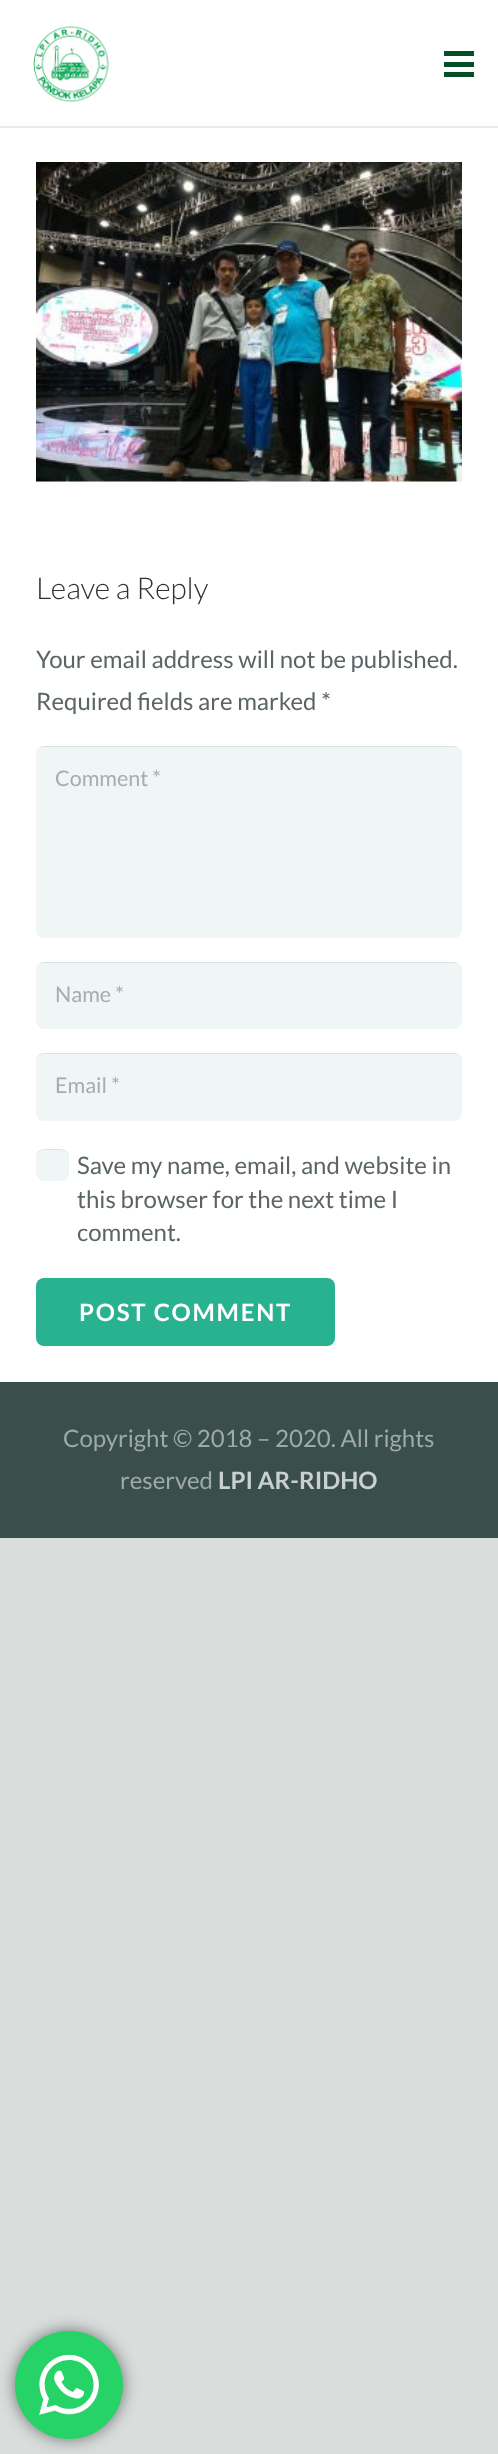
<!DOCTYPE html>
<meta charset="utf-8">
<style>body { margin: 0 } canvas { display: block }</style>
<canvas id="canvas" width="498" height="2454"></canvas>
<script type="module">
  const canvas = document.getElementById("canvas");
  const g = canvas.getContext("2d");
  g.miterLimit = 4;
  g.fontKerning = "normal";
  function drawText(s, x, y, [font, color]) {
    g.font = font;
    g.fillStyle = color;
    g.fillText(s, x, y);
  }
  function fillBox(x, y, w, h, color) {
    g.fillStyle = color;
    g.fillRect(x, y, w, h);
  }
  function fillRounded(x, y, w, h, r, color) {
    g.fillStyle = color;
    g.beginPath();
    g.roundRect(x, y, w, h, r);
    g.fill();
  }
  async function drawPicture(src, x, y, w, h) {
    const img = new Image();
    img.src = src;
    await img.decode();
    g.drawImage(img, x, y, w, h);
  }

  const s1 = ["300 30px Lato", "#2B3233"];
  const s2 = ["24px Lato", "#5C6566"];
  const s3 = ["21.5px Lato", "#A6ADAE"];
  const s4 = ["bold 24px Lato", "#FFFFFF"];
  const s5 = ["24px Lato", "#9EA9A8"];
  const s6 = ["bold 24px Lato", "#C9D1D0"];

  fillBox(0, 0, 498, 2454, "#D9DEDD");
  fillBox(0, 0, 498, 1382, "#FFFFFF");
  fillBox(0, 126, 498, 2, "#EBEBEB");
  await drawPicture("pic1.png", 33, 26, 76, 77);
  fillBox(444, 62, 30, 5, "#044F28");
  fillBox(444, 51, 30, 5, "#044F28");
  fillBox(444, 72, 30, 5, "#044F28");
  await drawPicture("pic2.png", 36, 162, 426, 320);
  drawText("Leave a Reply", 36, 599, s1);
  drawText("Your email address will not be published.", 36, 668, s2);
  drawText("Required fields are marked *", 36, 710, s2);
  fillRounded(36, 746, 426, 192, 8, "#F0F5F5");
  g.fillStyle = "rgba(0, 0, 0, 0.08)";
  g.beginPath();
  g.moveTo(43, 747);
  g.lineTo(455, 747);
  g.bezierCurveTo(459, 747, 462, 750, 462, 754);
  g.bezierCurveTo(462, 750, 458, 746, 454, 746);
  g.lineTo(44, 746);
  g.bezierCurveTo(40, 746, 36, 750, 36, 754);
  g.bezierCurveTo(36, 750, 39, 747, 43, 747);
  g.closePath();
  g.fill();
  drawText("Comment *", 55, 786, s3);
  fillRounded(36, 962, 426, 67, 8, "#F0F5F5");
  g.fillStyle = "rgba(0, 0, 0, 0.08)";
  g.beginPath();
  g.moveTo(43, 963);
  g.lineTo(455, 963);
  g.bezierCurveTo(459, 963, 462, 966, 462, 970);
  g.bezierCurveTo(462, 966, 458, 962, 454, 962);
  g.lineTo(44, 962);
  g.bezierCurveTo(40, 962, 36, 966, 36, 970);
  g.bezierCurveTo(36, 966, 39, 963, 43, 963);
  g.closePath();
  g.fill();
  drawText("Name *", 55, 1002, s3);
  fillRounded(36, 1053, 426, 68, 8, "#F0F5F5");
  g.fillStyle = "rgba(0, 0, 0, 0.08)";
  g.beginPath();
  g.moveTo(43, 1054);
  g.lineTo(455, 1054);
  g.bezierCurveTo(459, 1054, 462, 1058, 462, 1062);
  g.bezierCurveTo(462, 1057, 459, 1053, 454, 1053);
  g.lineTo(44, 1053);
  g.bezierCurveTo(39, 1053, 36, 1057, 36, 1062);
  g.bezierCurveTo(36, 1058, 39, 1054, 43, 1054);
  g.closePath();
  g.fill();
  drawText("Email *", 55, 1093, s3);
  fillRounded(36, 1149, 33, 32, 8, "#F0F5F5");
  g.fillStyle = "rgba(0, 0, 0, 0.08)";
  g.beginPath();
  g.moveTo(43, 1150);
  g.lineTo(62, 1150);
  g.bezierCurveTo(66, 1150, 69, 1154, 69, 1158);
  g.bezierCurveTo(69, 1147.5, 60, 1149, 52.5, 1149);
  g.bezierCurveTo(45, 1149, 36, 1147.5, 36, 1158);
  g.bezierCurveTo(36, 1154, 39, 1150, 43, 1150);
  g.closePath();
  g.fill();
  drawText("Save my name, email, and website in", 77, 1174, s2);
  drawText("this browser for the next time I", 77, 1208, s2);
  drawText("comment.", 77, 1241, s2);
  fillRounded(36, 1278, 299, 68, 8, "#29B28F");
  g.letterSpacing = "1.75px";
  drawText("POST COMMENT", 79, 1321, s4);
  fillBox(0, 1382, 498, 156, "#3A4E4C");
  g.letterSpacing = "0px";
  drawText("Copyright © 2018 – 2020. All rights", 63, 1447, s5);
  drawText("reserved", 120, 1489, s5);
  drawText("LPI AR-RIDHO", 218, 1489, s6);
  g.fillStyle = "rgba(0, 0, 0, 0.5)";
  g.filter = "blur(8px)";
  g.beginPath();
  g.roundRect(15, 2331, 108, 108, 54);
  g.fill();
  g.filter = "none";
  g.fillStyle = "#25D366";
  g.beginPath();
  g.arc(69, 2385, 54, 0, Math.PI * 2);
  g.fill();
  await drawPicture("pic3.png", 39, 2355, 60, 60);
</script>
